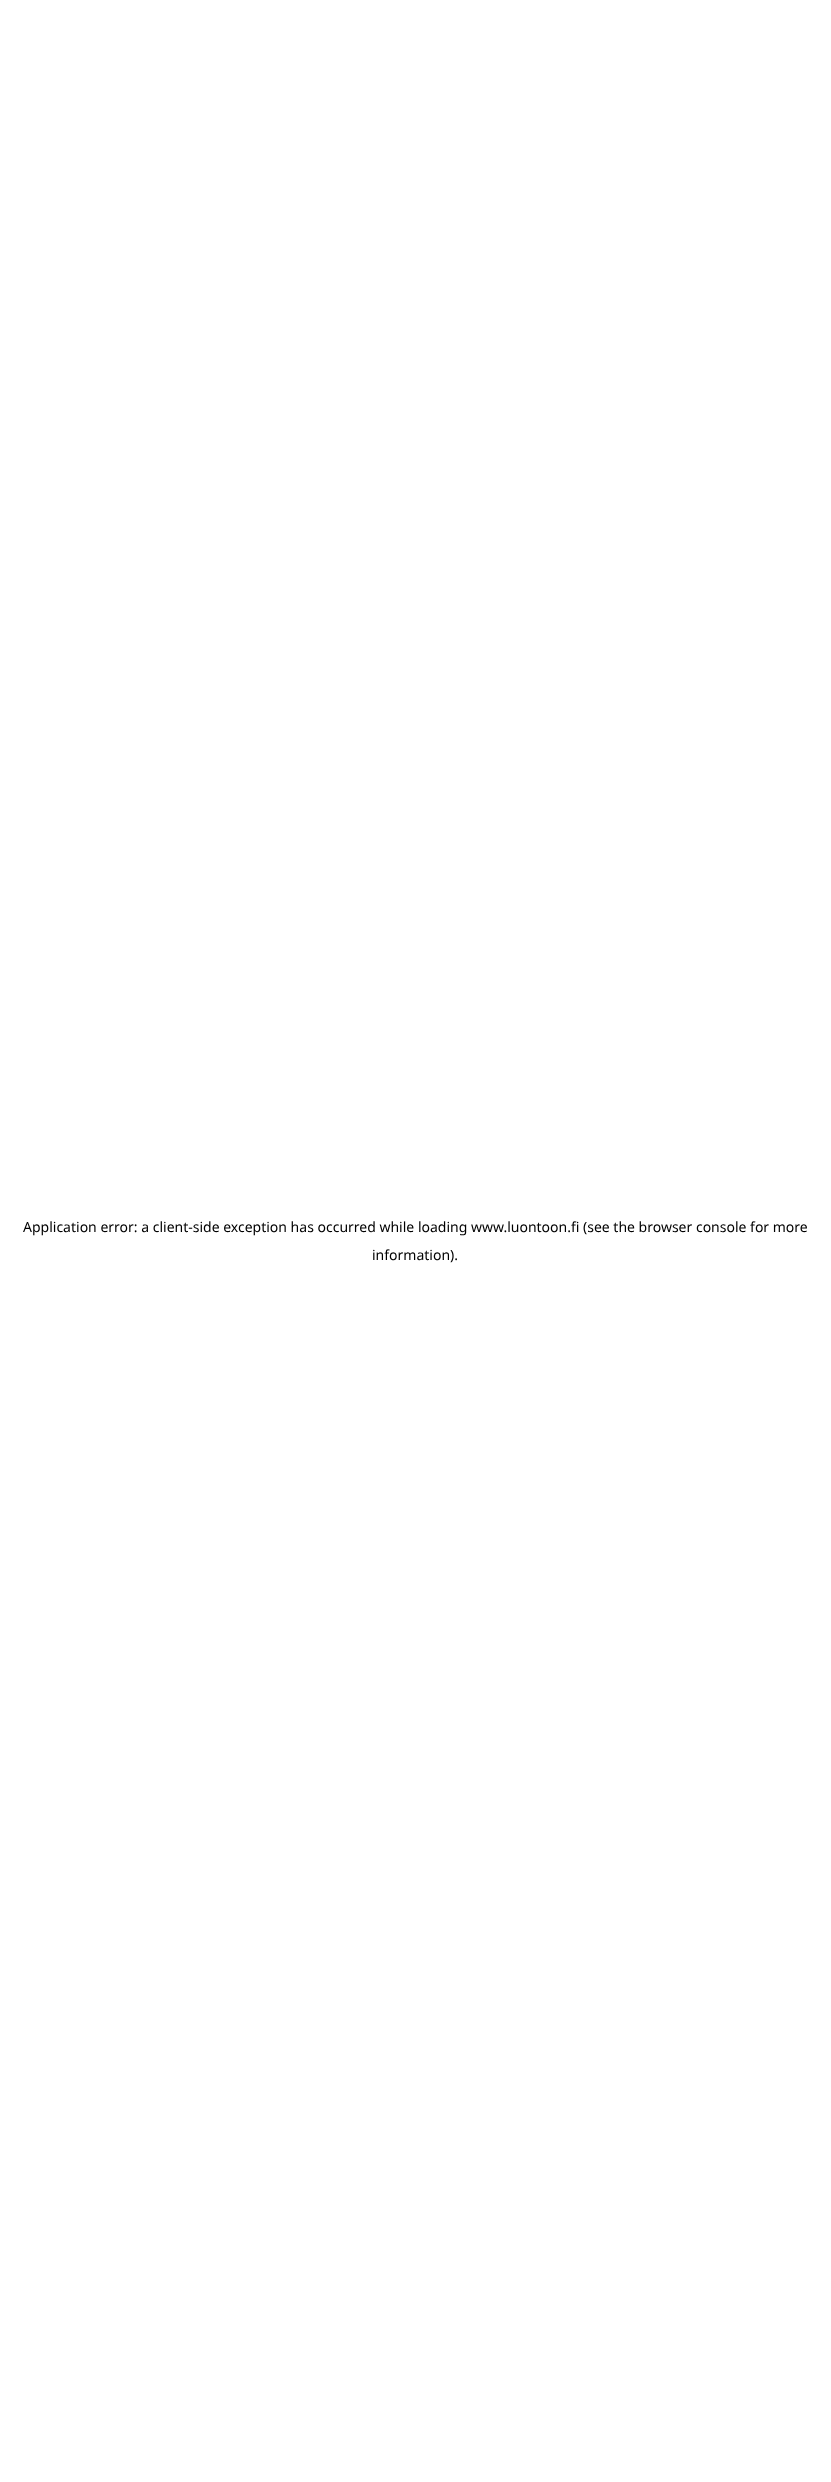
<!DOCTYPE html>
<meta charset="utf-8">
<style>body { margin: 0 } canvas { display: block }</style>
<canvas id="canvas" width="831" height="2482"></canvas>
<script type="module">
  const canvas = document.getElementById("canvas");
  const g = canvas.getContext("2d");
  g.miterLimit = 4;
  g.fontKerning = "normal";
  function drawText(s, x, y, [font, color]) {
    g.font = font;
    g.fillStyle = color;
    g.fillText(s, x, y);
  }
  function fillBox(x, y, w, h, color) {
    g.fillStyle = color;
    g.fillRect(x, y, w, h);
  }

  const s1 = ["14px Noto Sans", "#000000"];

  fillBox(0, 0, 831, 2482, "#FFFFFF");
  drawText("Application error: a client-side exception has occurred while loading www.luontoon.fi (see the browser console for more", 23, 1232, s1);
  drawText("information).", 372, 1260, s1);
</script>
